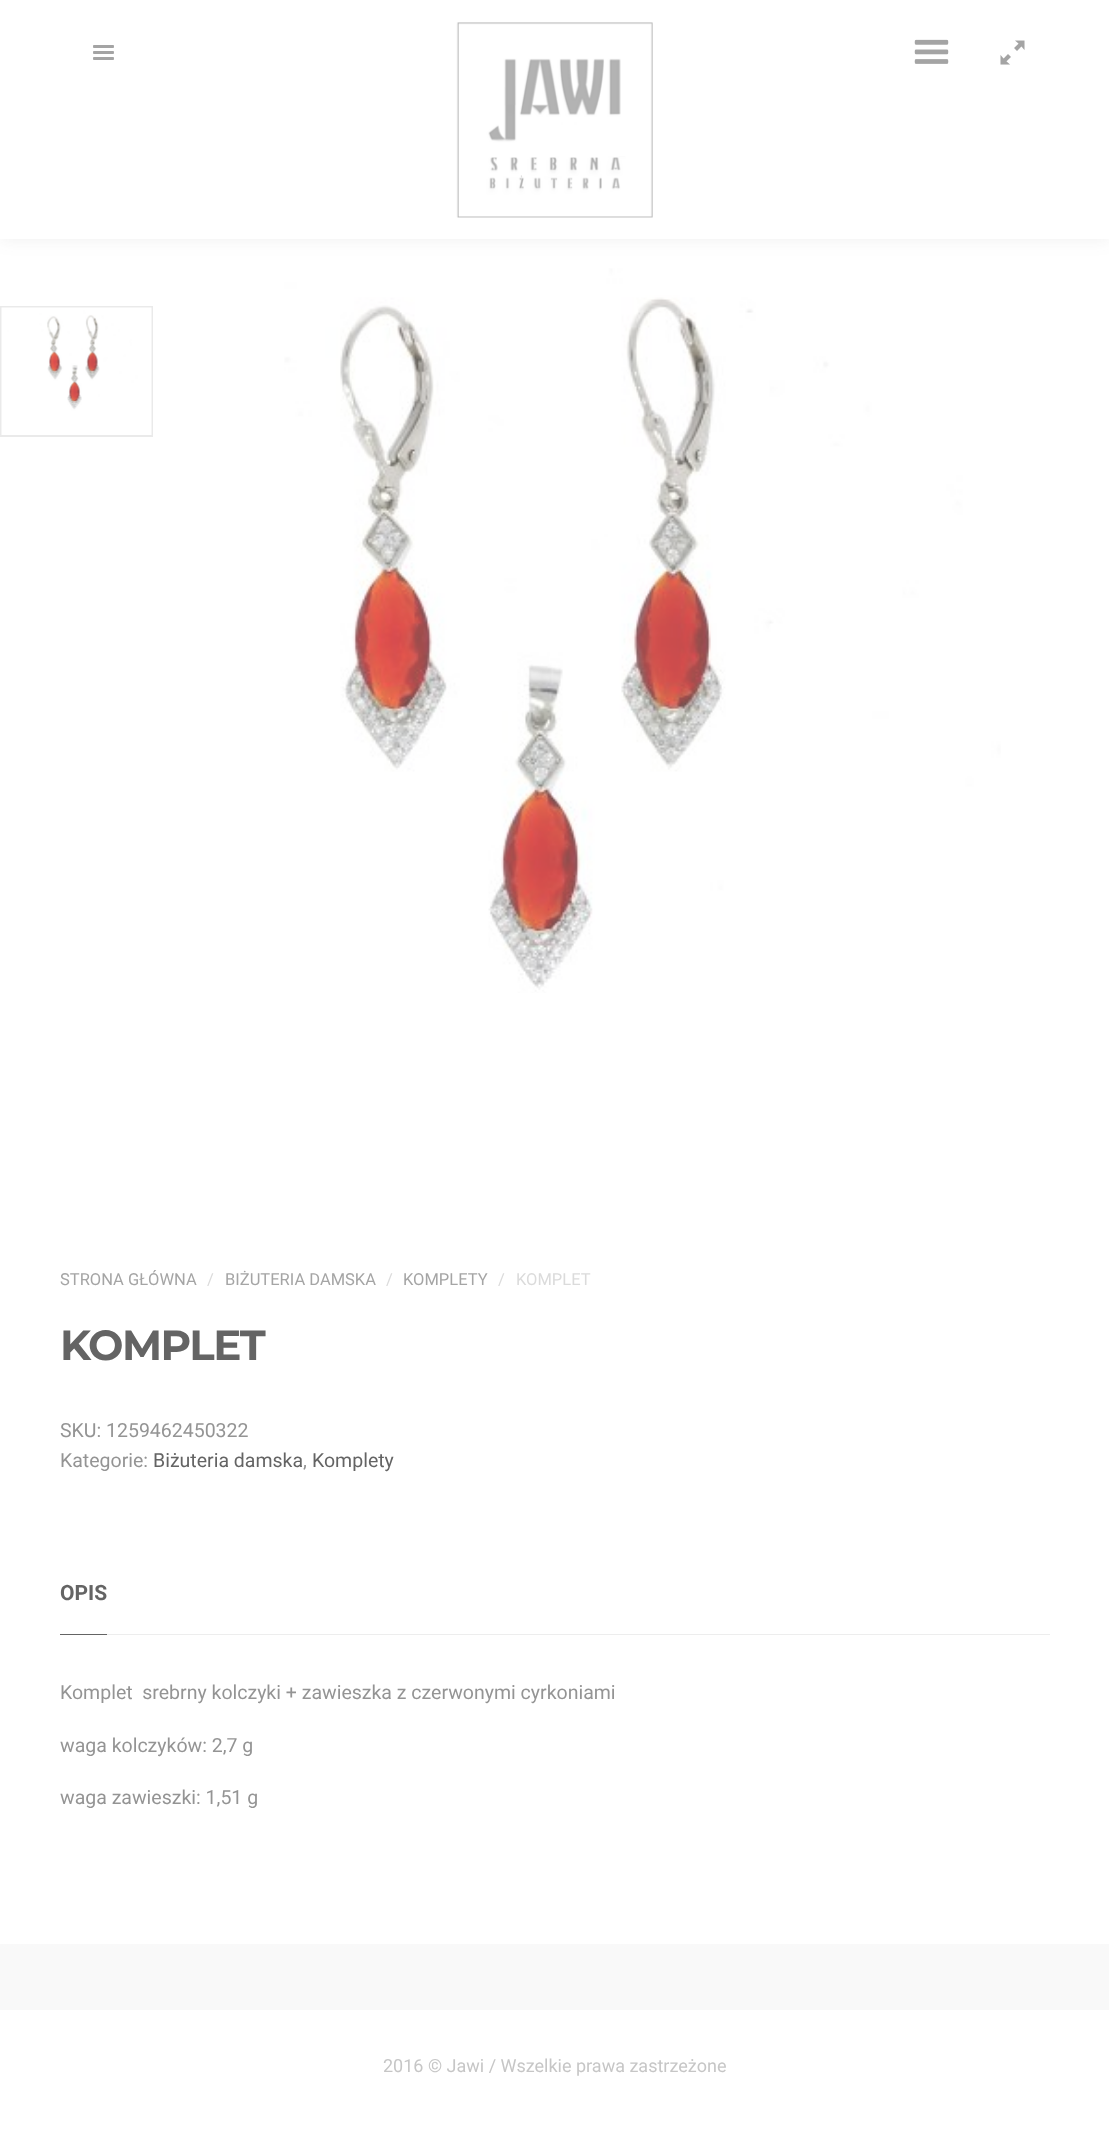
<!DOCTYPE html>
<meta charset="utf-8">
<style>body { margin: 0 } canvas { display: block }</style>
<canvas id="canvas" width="1109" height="2137"></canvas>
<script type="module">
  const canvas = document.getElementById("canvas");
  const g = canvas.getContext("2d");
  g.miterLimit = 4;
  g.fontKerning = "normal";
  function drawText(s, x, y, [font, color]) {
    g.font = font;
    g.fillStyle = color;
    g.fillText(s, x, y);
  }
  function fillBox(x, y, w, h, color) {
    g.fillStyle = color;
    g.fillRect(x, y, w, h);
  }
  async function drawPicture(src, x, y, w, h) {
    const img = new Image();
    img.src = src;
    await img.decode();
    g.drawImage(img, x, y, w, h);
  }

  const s1 = ["16.5px Roboto", "#A5A5A5"];
  const s2 = ["16.5px Roboto", "#DBDBDB"];
  const s3 = ["bold 42px Montserrat", "#646464"];
  const s4 = ["19.5px Roboto", "#949494"];
  const s5 = ["19.5px Roboto", "#646464"];
  const s6 = ["bold 21px Roboto", "#646464"];
  const s7 = ["18px Roboto", "#C6C6C6"];

  fillBox(0, 0, 1109, 2137, "#F9F9F9");
  fillBox(0, 239, 1109, 1705, "#FFFFFF");
  g.fillStyle = "rgba(77, 77, 77, 0.09)";
  g.filter = "blur(9px)";
  g.beginPath();
  g.rect(0, 0, 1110, 239);
  g.fill();
  g.filter = "none";
  fillBox(0, 0, 1109, 239, "#FFFFFF");
  await drawPicture("pic1.png", 456, 22, 197, 196);
  await drawPicture("pic2.png", 93, 45, 21, 15);
  await drawPicture("pic3.png", 914, 39, 35, 25);
  await drawPicture("pic4.png", 1000, 40, 25, 25);
  g.strokeStyle = "#EAEAEA";
  g.lineWidth = 2;
  g.strokeRect(1, 307, 151, 129);
  await drawPicture("pic5.png", 1, 307, 151, 128);
  await drawPicture("pic6.png", 284, 268, 717, 725);
  drawText("STRONA GŁÓWNA", 60, 1285, s1);
  drawText("/", 207, 1285, s2);
  drawText("BIŻUTERIA DAMSKA", 225, 1285, s1);
  drawText("/", 386, 1285, s2);
  drawText("KOMPLETY", 403, 1285, s1);
  drawText("/", 498, 1285, s2);
  drawText("KOMPLET", 516, 1285, s2);
  g.letterSpacing = "-1.5px";
  drawText("KOMPLET", 60, 1360, s3);
  g.letterSpacing = "0px";
  drawText("SKU: 1259462450322", 60, 1437, s4);
  drawText("Kategorie:", 60, 1467, s4);
  drawText("Biżuteria damska", 153, 1467, s5);
  drawText(",", 303, 1467, s4);
  drawText("Komplety", 312, 1467, s5);
  fillBox(60, 1634, 47, 1, "#646464");
  drawText("OPIS", 60, 1600, s6);
  fillBox(107, 1634, 943, 1, "#EDEDED");
  drawText("Komplet  srebrny kolczyki + zawieszka z czerwonymi cyrkoniami", 60, 1699, s4);
  drawText("waga kolczyków: 2,7 g", 60, 1752, s4);
  drawText("waga zawieszki: 1,51 g", 60, 1804, s4);
  fillBox(0, 2010, 1109, 127, "#FFFFFF");
  drawText("2016 © Jawi / Wszelkie prawa zastrzeżone", 383, 2072, s7);
</script>
